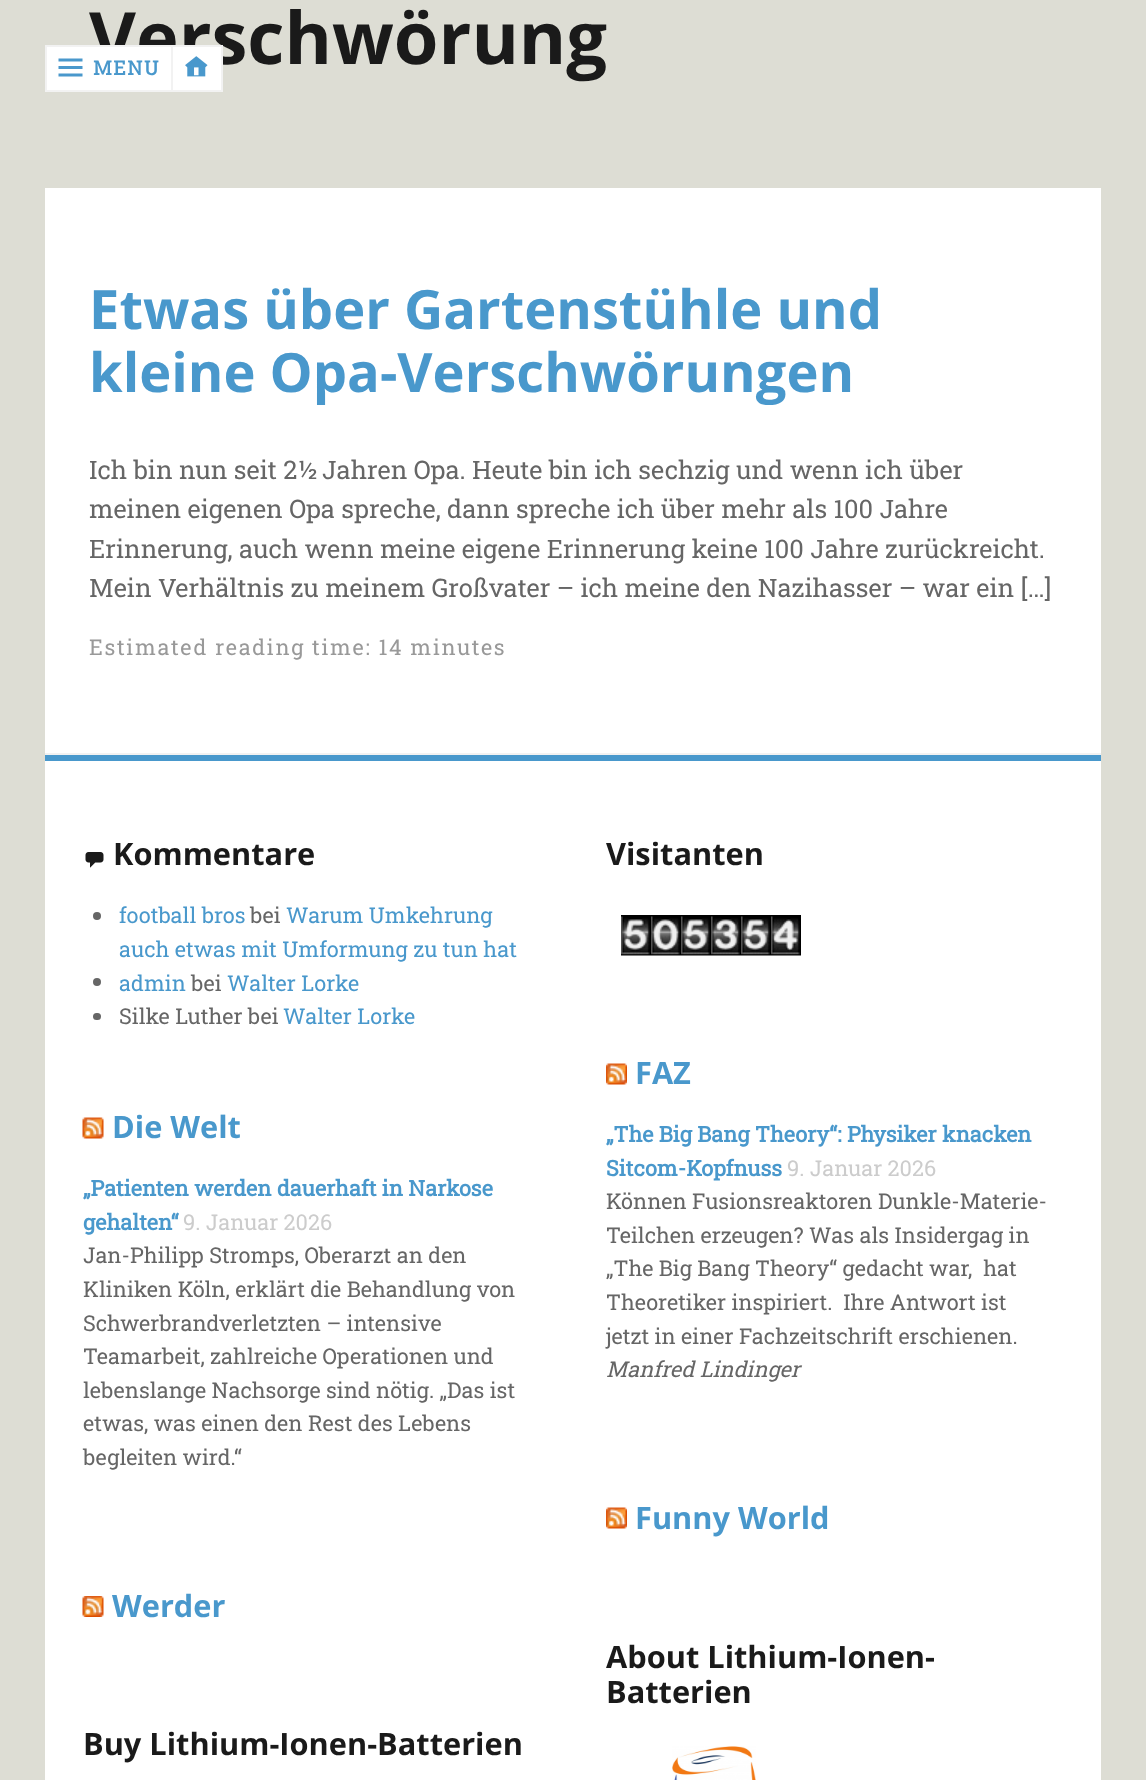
<!DOCTYPE html>
<meta charset="utf-8">
<style>body { margin: 0 } canvas { display: block }</style>
<canvas id="canvas" width="1146" height="1780"></canvas>
<script type="module">
  const canvas = document.getElementById("canvas");
  const g = canvas.getContext("2d");
  g.miterLimit = 4;
  g.fontKerning = "normal";
  function drawText(s, x, y, [font, color]) {
    g.font = font;
    g.fillStyle = color;
    g.fillText(s, x, y);
  }
  function fillBox(x, y, w, h, color) {
    g.fillStyle = color;
    g.fillRect(x, y, w, h);
  }
  function fillRounded(x, y, w, h, r, color) {
    g.fillStyle = color;
    g.beginPath();
    g.roundRect(x, y, w, h, r);
    g.fill();
  }
  async function drawPicture(src, x, y, w, h) {
    const img = new Image();
    img.src = src;
    await img.decode();
    g.drawImage(img, x, y, w, h);
  }

  const s1 = ["bold 72.25px Open Sans", "#1A1A1A"];
  const s2 = ["bold 54.25px Open Sans", "#4998CC"];
  const s3 = ["25.5px Roboto Slab", "#666666"];
  const s4 = ["21.7px Roboto Slab", "#999999"];
  const s5 = ["bold 30.75px Open Sans", "#1A1A1A"];
  const s6 = ["21.7px Roboto Slab", "#4998CC"];
  const s7 = ["21.7px Roboto Slab", "#666666"];
  const s8 = ["bold 30.75px Open Sans", "#4998CC"];
  const s9 = ["bold 21.7px Roboto Slab", "#4998CC"];
  const s10 = ["21.7px Roboto Slab", "#CCCCCC"];
  const s11 = ["italic 21.7px Roboto Slab", "#666666"];
  const s12 = ["bold 19.5px Roboto Slab", "#4998CC"];

  fillBox(0, 0, 1146, 1780, "#DDDDD4");
  drawText("Verschwörung", 89, 64, s1);
  fillBox(45, 188, 1056, 565, "#FFFFFF");
  fillBox(45, 753, 1056, 2, "#F2F2F2");
  drawText("Etwas über Gartenstühle und", 89, 329, s2);
  drawText("kleine Opa-Verschwörungen", 89, 392, s2);
  drawText("Ich bin nun seit 2½ Jahren Opa. Heute bin ich sechzig und wenn ich über", 89, 479, s3);
  drawText("meinen eigenen Opa spreche, dann spreche ich über mehr als 100 Jahre", 89, 518, s3);
  drawText("Erinnerung, auch wenn meine eigene Erinnerung keine 100 Jahre zurückreicht.", 89, 558, s3);
  drawText("Mein Verhältnis zu meinem Großvater – ich meine den Nazihasser – war ein […]", 89, 597, s3);
  g.letterSpacing = "1.65px";
  drawText("Estimated reading time: 14 minutes", 89, 655, s4);
  fillBox(45, 761, 1056, 1019, "#FFFFFF");
  fillBox(45, 755, 1056, 6, "#4998CC");
  await drawPicture("pic1.png", 85, 852, 19, 16);
  g.letterSpacing = "0px";
  drawText("Kommentare", 113, 865, s5);
  g.fillStyle = "#666666";
  g.beginPath();
  g.arc(97, 916, 4, 0, Math.PI * 2);
  g.fill();
  drawText("football bros", 119, 923, s6);
  drawText("bei", 250, 923, s7);
  drawText("Warum Umkehrung", 286, 923, s6);
  drawText("auch etwas mit Umformung zu tun hat", 119, 957, s6);
  g.fillStyle = "#666666";
  g.beginPath();
  g.arc(97, 982, 4, 0, Math.PI * 2);
  g.fill();
  drawText("admin", 119, 991, s6);
  drawText("bei", 191, 991, s7);
  drawText("Walter Lorke", 227, 991, s6);
  fillRounded(93, 1013, 8, 7, 3.5, "#666666");
  drawText("Silke Luther bei", 119, 1024, s7);
  drawText("Walter Lorke", 283, 1024, s6);
  drawText("Visitanten", 606, 865, s5);
  await drawPicture("pic2.png", 621, 915, 30, 41);
  await drawPicture("pic3.png", 651, 915, 30, 41);
  await drawPicture("pic2.png", 681, 915, 30, 41);
  await drawPicture("pic4.png", 711, 915, 30, 41);
  await drawPicture("pic5.png", 741, 915, 30, 41);
  await drawPicture("pic6.png", 771, 915, 30, 41);
  await drawPicture("pic7.png", 82, 1117, 22, 22);
  drawText("Die Welt", 112, 1138, s8);
  drawText("„Patienten werden dauerhaft in Narkose", 83, 1196, s9);
  drawText("gehalten“", 83, 1230, s9);
  drawText("9. Januar 2026", 183, 1230, s10);
  drawText("Jan-Philipp Stromps, Oberarzt an den", 83, 1263, s7);
  drawText("Kliniken Köln, erklärt die Behandlung von", 83, 1297, s7);
  drawText("Schwerbrandverletzten – intensive", 83, 1331, s7);
  drawText("Teamarbeit, zahlreiche Operationen und", 83, 1364, s7);
  drawText("lebenslange Nachsorge sind nötig. „Das ist", 83, 1398, s7);
  drawText("etwas, was einen den Rest des Lebens", 83, 1431, s7);
  drawText("begleiten wird.“", 83, 1465, s7);
  await drawPicture("pic8.png", 606, 1063, 21, 22);
  drawText("FAZ", 635, 1084, s8);
  drawText("„The Big Bang Theory“: Physiker knacken", 606, 1142, s9);
  drawText("Sitcom-Kopfnuss", 606, 1176, s9);
  drawText("9. Januar 2026", 787, 1176, s10);
  drawText("Können Fusionsreaktoren Dunkle-Materie-", 606, 1209, s7);
  drawText("Teilchen erzeugen? Was als Insidergag in", 606, 1243, s7);
  drawText("„The Big Bang Theory“ gedacht war,  hat", 606, 1276, s7);
  drawText("Theoretiker inspiriert.  Ihre Antwort ist", 606, 1310, s7);
  drawText("jetzt in einer Fachzeitschrift erschienen.", 606, 1344, s7);
  drawText("Manfred Lindinger", 606, 1377, s11);
  await drawPicture("pic8.png", 606, 1507, 21, 22);
  drawText("Funny World", 635, 1529, s8);
  await drawPicture("pic9.png", 82, 1596, 22, 21);
  drawText("Werder", 112, 1617, s8);
  drawText("About Lithium-Ionen-", 606, 1668, s5);
  drawText("Batterien", 606, 1703, s5);
  await drawPicture("pic10.png", 672, 1746, 84, 34);
  drawText("Buy Lithium-Ionen-Batterien", 83, 1755, s5);
  g.fillStyle = "#FFFFFF";
  g.beginPath();
  g.rect(46, 46, 126, 45);
  g.fill();
  g.strokeStyle = "#F2F2F2";
  g.lineWidth = 2;
  g.stroke();
  await drawPicture("pic11.png", 58, 58, 25, 19);
  g.letterSpacing = "1.5px";
  drawText("MENU", 93, 75, s12);
  fillBox(173, 47, 48, 43, "#FFFFFF");
  fillBox(173, 45, 49, 2, "#F2F2F2");
  fillBox(221, 45, 2, 47, "#F2F2F2");
  fillBox(173, 90, 49, 2, "#F2F2F2");
  await drawPicture("pic12.png", 185, 56, 23, 21);
</script>
